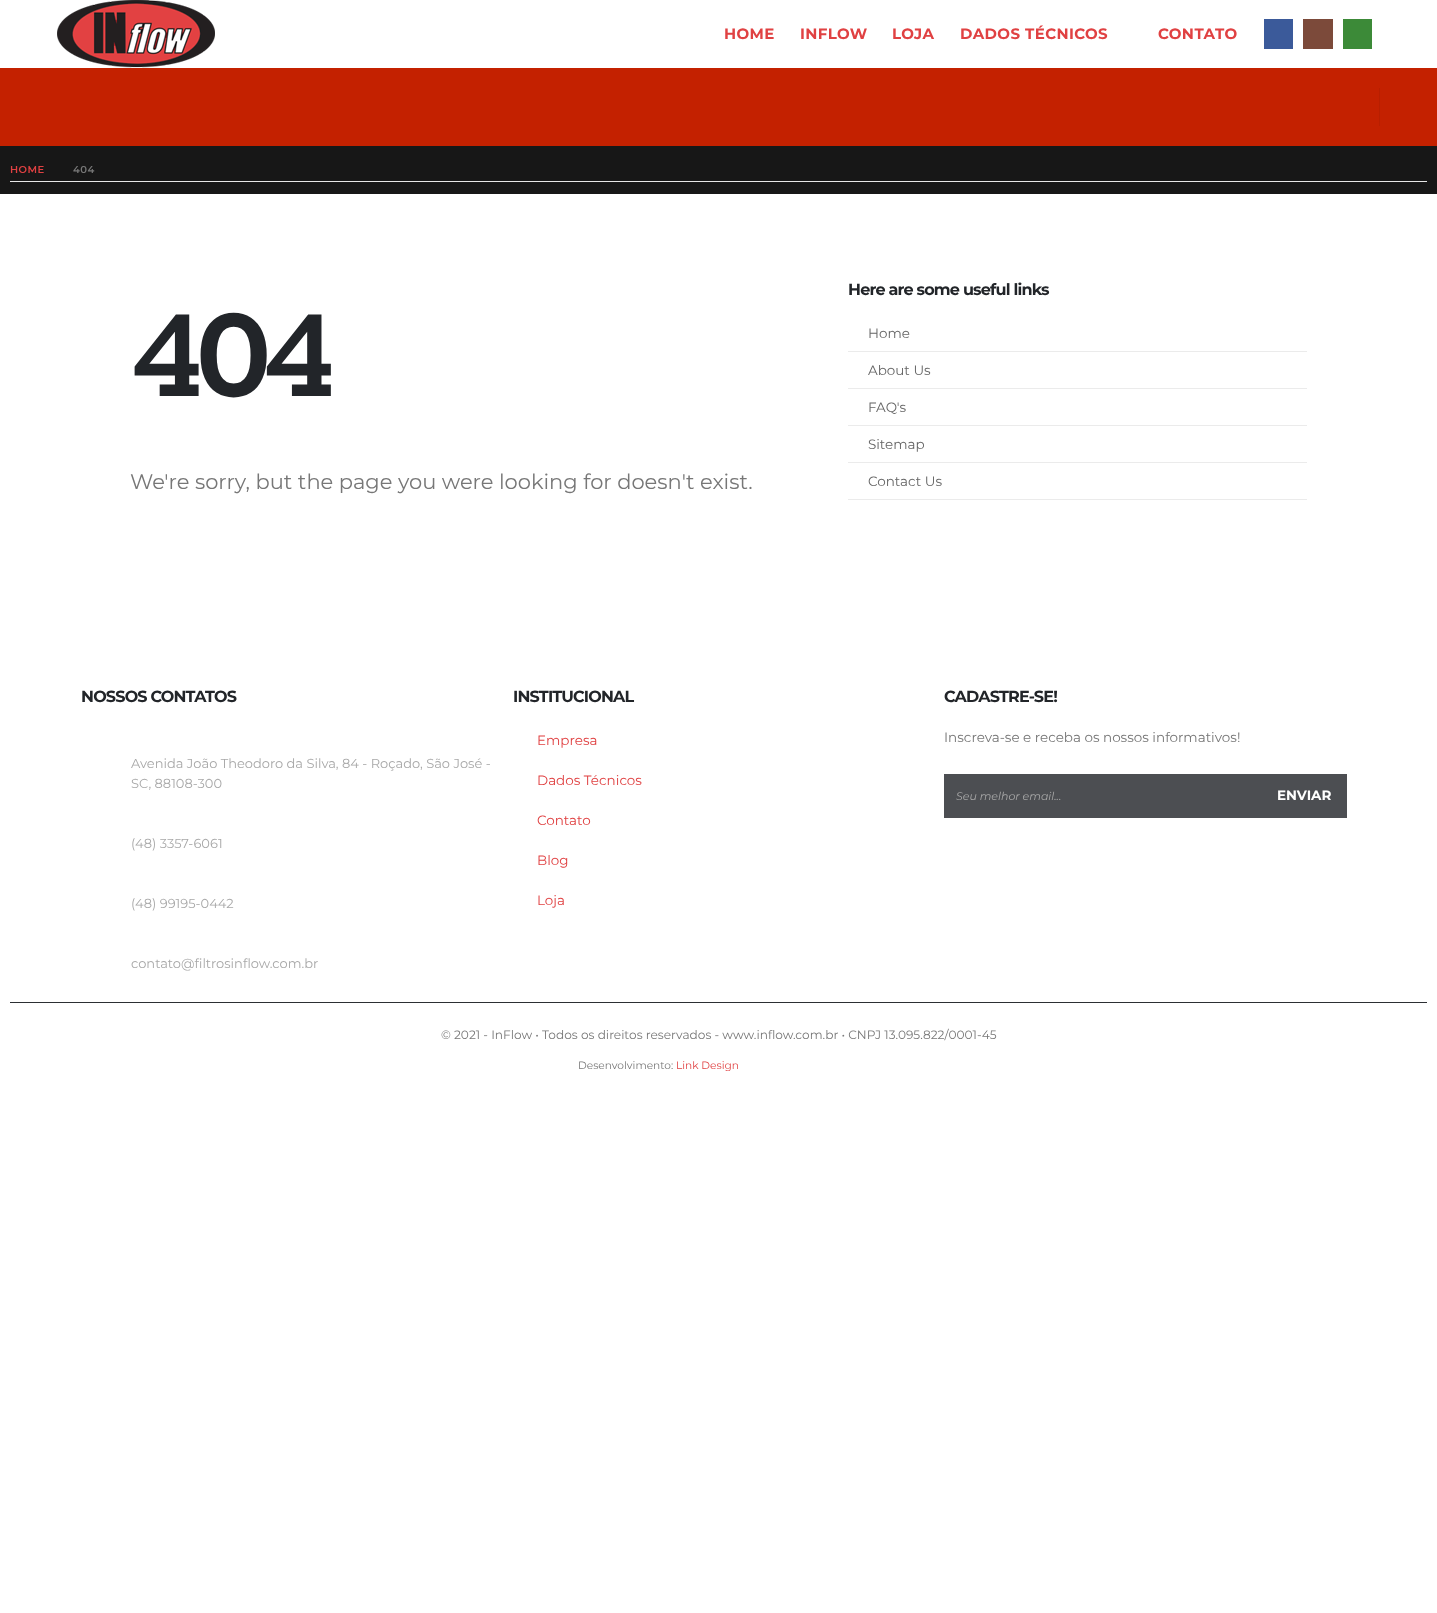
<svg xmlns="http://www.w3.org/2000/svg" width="1437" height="1613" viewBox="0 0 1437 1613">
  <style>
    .t1 { font: bold 15px Montserrat; letter-spacing: 0.4px; fill: #e04142; }
    .t2 { font: 600 10px Montserrat; letter-spacing: 0.5px; fill: #e04142; }
    .t3 { font: 600 10px Montserrat; letter-spacing: 0.5px; fill: #777; }
    .t4 { font: 600 140px Rokkitt; letter-spacing: -10px; fill: #222529; }
    .t5 { font: 21px Montserrat; fill: #777; }
    .t6 { font: bold 16px Montserrat; letter-spacing: -0.8px; fill: #222529; }
    .t7 { font: 13.5px Montserrat; fill: #666; }
    .t8 { font: 13px Montserrat; fill: #a8a8a8; }
    .t9 { font: 13.5px Montserrat; fill: #e04142; }
    .t10 { font: 13.5px Montserrat; fill: #777; }
    .t11 { font: italic 11px Montserrat; fill: #a8a8a8; }
    .t12 { font: bold 13.5px Montserrat; fill: #fff; }
    .t13 { font: 12.15px Montserrat; fill: #777; }
    .t14 { font: 10.6px Montserrat; fill: #777; }
    .t15 { font: 10.6px Montserrat; fill: #e04142; }
  </style>
  <rect width="100%" height="100%" fill="#fff"/>
  <image x="57" y="0" width="158" height="68" href="images/1.png"/>
  <text x="724" y="39" class="t1">HOME</text>
  <text x="800" y="39" class="t1">INFLOW</text>
  <text x="892" y="39" class="t1">LOJA</text>
  <text x="960" y="39" class="t1">DADOS TÉCNICOS</text>
  <text x="1158" y="39" class="t1">CONTATO</text>
  <rect x="1264" y="19" width="29" height="30" fill="#3b5a9a"/>
  <rect x="1303" y="19" width="30" height="30" fill="#7c4a3a"/>
  <rect x="1343" y="19" width="29" height="30" fill="#3c8a38"/>
  <rect x="0" y="68" width="1437" height="78" fill="#c42100"/>
  <rect x="1379" y="88" width="1" height="38" fill="#b81f00"/>
  <rect x="0" y="146" width="1437" height="48" fill="#171717"/>
  <text x="10" y="173" class="t2">HOME</text>
  <text x="73" y="173" class="t3">404</text>
  <rect x="10" y="181" width="1417" height="1" fill="#e7e7e7"/>
  <text x="130" y="396" class="t4">404</text>
  <text x="130" y="489" class="t5">We're sorry, but the page you were looking for doesn't exist.</text>
  <text x="848" y="295" class="t6">Here are some useful links</text>
  <rect x="848" y="351" width="459" height="1" fill="#ebebeb"/>
  <text x="868" y="338" class="t7">Home</text>
  <rect x="848" y="388" width="459" height="1" fill="#ebebeb"/>
  <text x="868" y="375" class="t7">About Us</text>
  <rect x="848" y="425" width="459" height="1" fill="#ebebeb"/>
  <text x="868" y="412" class="t7">FAQ's</text>
  <rect x="848" y="462" width="459" height="1" fill="#ebebeb"/>
  <text x="868" y="449" class="t7">Sitemap</text>
  <rect x="848" y="499" width="459" height="1" fill="#ebebeb"/>
  <text x="868" y="486" class="t7">Contact Us</text>
  <text x="81" y="702" class="t6">NOSSOS CONTATOS</text>
  <text x="131" y="768" class="t8">Avenida João Theodoro da Silva, 84 - Roçado, São José -</text>
  <text x="131" y="788" class="t8">SC, 88108-300</text>
  <text x="131" y="848" class="t8">(48) 3357-6061</text>
  <text x="131" y="908" class="t8">(48) 99195-0442</text>
  <text x="131" y="968" class="t8">contato@filtrosinflow.com.br</text>
  <text x="513" y="702" class="t6">INSTITUCIONAL</text>
  <text x="537" y="745" class="t9">Empresa</text>
  <text x="537" y="785" class="t9">Dados Técnicos</text>
  <text x="537" y="825" class="t9">Contato</text>
  <text x="537" y="865" class="t9">Blog</text>
  <text x="537" y="905" class="t9">Loja</text>
  <text x="944" y="702" class="t6">CADASTRE-SE!</text>
  <text x="944" y="742" class="t10">Inscreva-se e receba os nossos informativos!</text>
  <rect x="944" y="774" width="403" height="44" fill="#4c4e52"/>
  <text x="956" y="800" class="t11">Seu melhor email...</text>
  <text x="1277" y="800" class="t12">ENVIAR</text>
  <rect x="10" y="1002" width="1417" height="1" fill="#2c2f33"/>
  <text x="441" y="1039" class="t13">© 2021 - InFlow • Todos os direitos reservados - www.inflow.com.br • CNPJ 13.095.822/0001-45</text>
  <text x="578" y="1069" class="t14">Desenvolvimento:</text>
  <text x="676" y="1069" class="t15">Link Design</text>
</svg>
